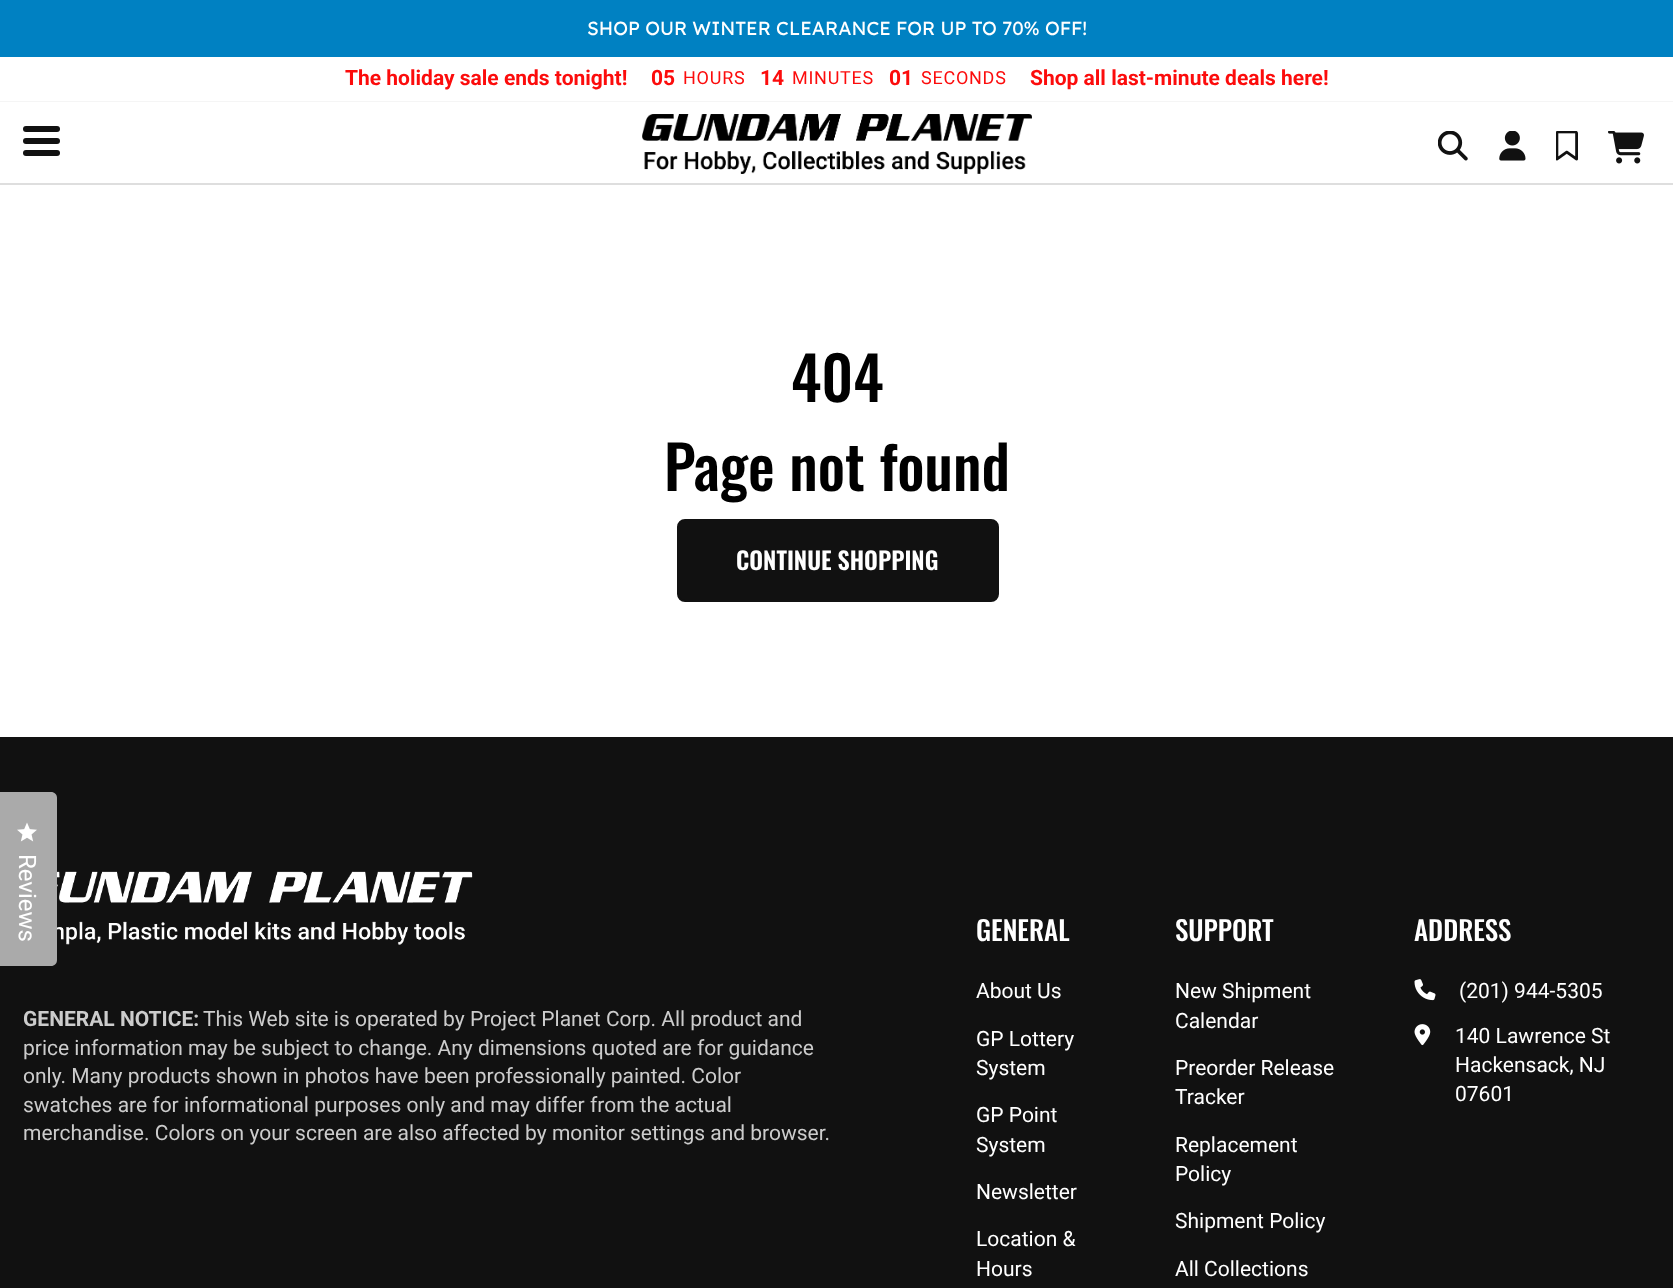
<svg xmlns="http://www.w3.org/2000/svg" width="1673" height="1288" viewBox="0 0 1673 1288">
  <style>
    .t1 { font: 18.9px Lexend; fill: #fff; }
    .t2 { font: bold 21px Roboto; fill: #fc0c0c; }
    .t3 { font: 18px Roboto; letter-spacing: 0.75px; fill: #fc0c0c; }
    .t4 { font: 500 60px Oswald; fill: #000; }
    .t5 { font: 600 24px Oswald; fill: #fff; }
    .t6 { font: 24px Roboto; fill: #fff; }
    .t7 { font: bold 21px Roboto; fill: #ccc; }
    .t8 { font: 21px Roboto; fill: #ccc; }
    .t9 { font: 500 27px Oswald; fill: #fff; }
    .t10 { font: 21px Roboto; fill: #fff; }
  </style>
  <rect width="100%" height="100%" fill="#fff"/>
  <rect x="0" y="0" width="1673" height="57" fill="#0081c2"/>
  <text x="587" y="35" class="t1">SHOP OUR WINTER CLEARANCE FOR UP TO 70% OFF!</text>
  <rect x="0" y="101" width="1673" height="1" fill="#f5f5f5"/>
  <text x="345" y="85" class="t2">The holiday sale ends tonight!</text>
  <text x="651" y="85" class="t2">05</text>
  <text x="683" y="84" class="t3">HOURS</text>
  <text x="760" y="85" class="t2">14</text>
  <text x="792" y="84" class="t3">MINUTES</text>
  <text x="889" y="85" class="t2">01</text>
  <text x="921" y="84" class="t3">SECONDS</text>
  <text x="1030" y="85" class="t2">Shop all last-minute deals here!</text>
  <rect x="0" y="183" width="1673" height="2" fill="#dedede"/>
  <rect x="23" y="126" width="37" height="6" rx="3" fill="#111"/>
  <rect x="23" y="138" width="37" height="6" rx="3" fill="#111"/>
  <rect x="23" y="150" width="37" height="6" rx="3" fill="#111"/>
  <image x="642" y="114" width="390" height="60" href="images/1.png"/>
  <image x="1438" y="131" width="30" height="30" href="images/2.png"/>
  <image x="1499" y="131" width="27" height="30" href="images/3.png"/>
  <image x="1556" y="131" width="22" height="30" href="images/4.png"/>
  <image x="1608" y="131" width="36" height="33" href="images/5.png"/>
  <text x="791" y="402" class="t4">404</text>
  <text x="664" y="491" class="t4">Page not found</text>
  <rect x="678" y="520" width="320" height="81" rx="7" fill="#111" stroke="#111" stroke-width="2"/>
  <text x="736" y="570" class="t5">CONTINUE SHOPPING</text>
  <rect x="0" y="737" width="1673" height="551" fill="#111"/>
  <path d="M-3 792H51C54.5 792 57 794.5 57 798V960C57 963.5 54.5 966 51 966H-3Z" fill="#aaa"/>
  <image x="17" y="822" width="20" height="20" href="images/6.png"/>
  <text x="19" y="854" transform="rotate(90.1 19 854)" class="t6">Reviews</text>
  <image x="57" y="871" width="416" height="74" href="images/7.png"/>
  <text x="23" y="1026" class="t7">GENERAL NOTICE:</text>
  <text x="203" y="1026" class="t8">This Web site is operated by Project Planet Corp. All product and</text>
  <text x="23" y="1055" class="t8">price information may be subject to change. Any dimensions quoted are for guidance</text>
  <text x="23" y="1083" class="t8">only. Many products shown in photos have been professionally painted. Color</text>
  <text x="23" y="1112" class="t8">swatches are for informational purposes only and may differ from the actual</text>
  <text x="23" y="1140" class="t8">merchandise. Colors on your screen are also affected by monitor settings and browser.</text>
  <text x="976" y="941" class="t9">GENERAL</text>
  <text x="976" y="998" class="t10">About Us</text>
  <text x="976" y="1046" class="t10">GP Lottery</text>
  <text x="976" y="1075" class="t10">System</text>
  <text x="976" y="1122" class="t10">GP Point</text>
  <text x="976" y="1152" class="t10">System</text>
  <text x="976" y="1199" class="t10">Newsletter</text>
  <text x="976" y="1246" class="t10">Location &amp;</text>
  <text x="976" y="1276" class="t10">Hours</text>
  <text x="1175" y="941" class="t9">SUPPORT</text>
  <text x="1175" y="998" class="t10">New Shipment</text>
  <text x="1175" y="1028" class="t10">Calendar</text>
  <text x="1175" y="1075" class="t10">Preorder Release</text>
  <text x="1175" y="1104" class="t10">Tracker</text>
  <text x="1175" y="1152" class="t10">Replacement</text>
  <text x="1175" y="1181" class="t10">Policy</text>
  <text x="1175" y="1228" class="t10">Shipment Policy</text>
  <text x="1175" y="1276" class="t10">All Collections</text>
  <text x="1414" y="941" class="t9">ADDRESS</text>
  <image x="1414" y="979" width="22" height="22" href="images/8.png"/>
  <text x="1459" y="998" class="t10">(201) 944-5305</text>
  <image x="1414" y="1024" width="17" height="22" href="images/9.png"/>
  <text x="1455" y="1043" class="t10">140 Lawrence St</text>
  <text x="1455" y="1072" class="t10">Hackensack, NJ</text>
  <text x="1455" y="1101" class="t10">07601</text>
</svg>
